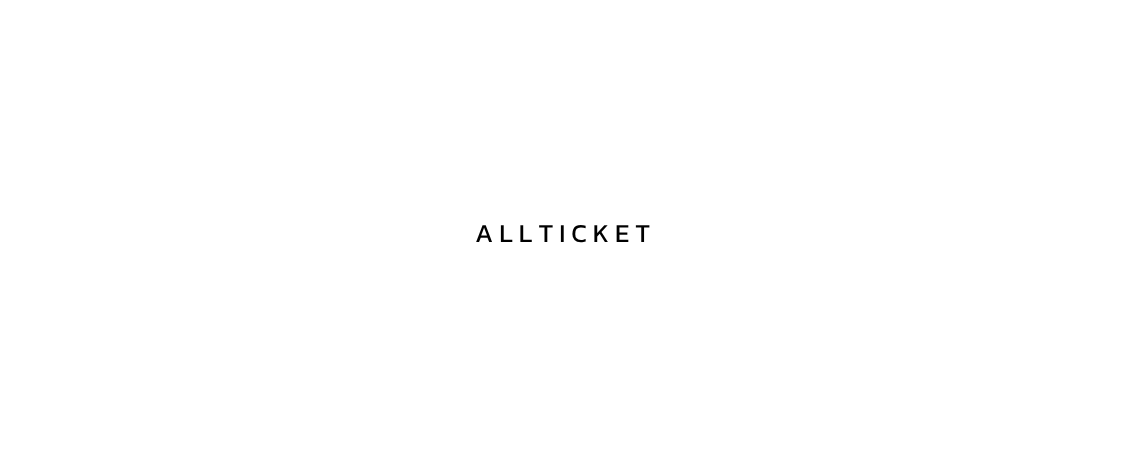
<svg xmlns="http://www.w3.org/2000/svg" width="1125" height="464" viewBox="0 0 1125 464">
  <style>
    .t1 { font: 26px Kanit; fill: #000; }
  </style>
  <rect width="100%" height="100%" fill="#fff"/>
  <text x="475" y="242" class="t1">A L L T I C K E T</text>
</svg>
